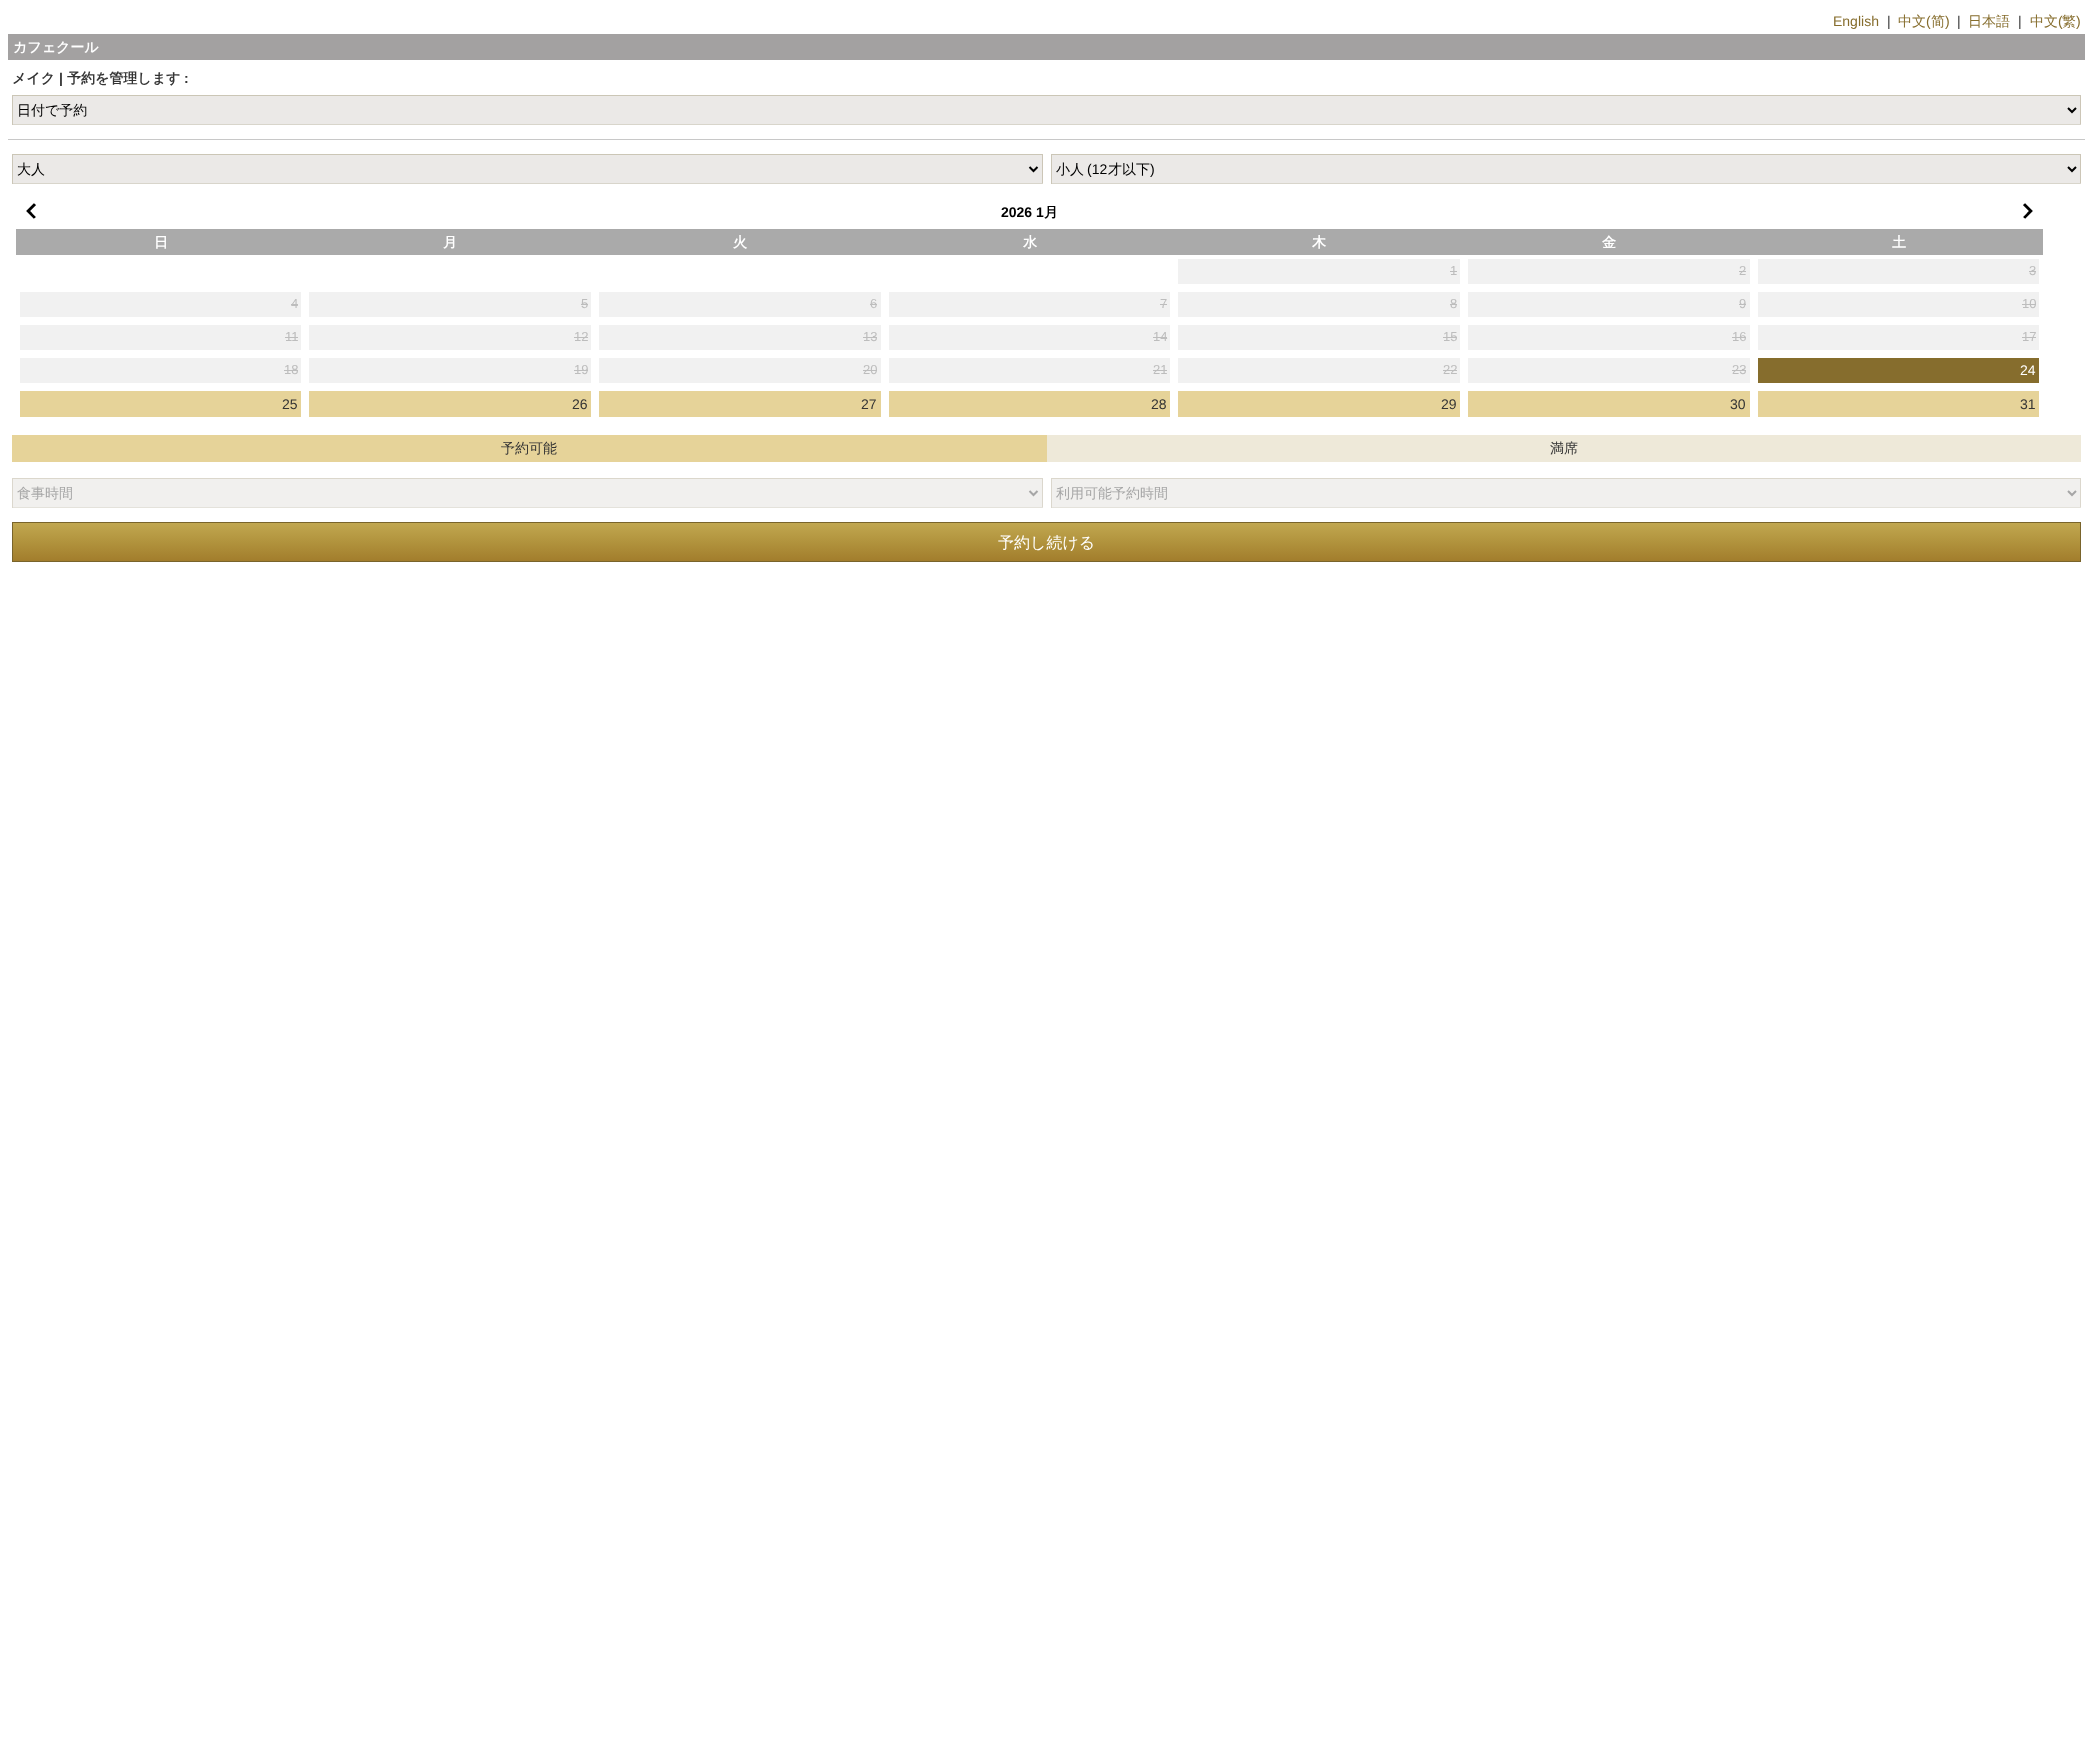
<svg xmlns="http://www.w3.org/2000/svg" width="2093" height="1758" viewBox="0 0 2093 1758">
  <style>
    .t1 { font: 14px Liberation Sans; fill: #866d2d; }
    .t2 { font: 14px Liberation Sans; fill: #343434; }
    .t3 { font: 500 14px WenQuanYi Zen Hei; fill: #866d2d; }
    .t4 { font: bold 14px WenQuanYi Zen Hei; fill: #fff; }
    .t5 { font: bold 14px WenQuanYi Zen Hei; fill: #343434; }
    .t6 { font: bold 14px Liberation Sans; fill: #343434; }
    .t7 { font: 500 14px WenQuanYi Zen Hei; fill: #000; }
    .t8 { font: 14px Liberation Sans; fill: #000; }
    .t9 { font: bold 14px Liberation Sans; fill: #000; }
    .t10 { font: bold 14px WenQuanYi Zen Hei; fill: #000; }
    .t11 { font: 13px Liberation Sans; fill: #bdbdbd; }
    .t12 { font: 14px Liberation Sans; fill: #fff; }
    .t13 { font: 500 14px WenQuanYi Zen Hei; fill: #343434; }
    .t14 { font: 500 14px WenQuanYi Zen Hei; fill: #a6a6a6; }
    .t15 { font: 500 16px WenQuanYi Zen Hei; fill: #fff; }
  </style>
  <defs>
    <linearGradient id="g1" gradientUnits="userSpaceOnUse" x1="1047" y1="523" x2="1047" y2="561"><stop offset="0" stop-color="#c1a750"/><stop offset="0.5" stop-color="#b1933d"/><stop offset="1" stop-color="#a27d2c"/></linearGradient>
  </defs>
  <rect width="100%" height="100%" fill="#fff"/>
  <text x="1833" y="26" class="t1">English</text>
  <text x="1887" y="26" class="t2">|</text>
  <text x="1898" y="26" class="t3">中文</text>
  <text x="1926" y="26" class="t1">(</text>
  <text x="1931" y="26" class="t3">简</text>
  <text x="1945" y="26" class="t1">)</text>
  <text x="1957" y="26" class="t2">|</text>
  <text x="1968" y="26" class="t3">日本語</text>
  <text x="2018" y="26" class="t2">|</text>
  <text x="2030" y="26" class="t3">中文</text>
  <text x="2058" y="26" class="t1">(</text>
  <text x="2062" y="26" class="t3">繁</text>
  <text x="2076" y="26" class="t1">)</text>
  <rect x="8" y="34" width="2077" height="26" fill="#a3a1a1"/>
  <text x="13" y="52" class="t4">カフェクール</text>
  <text x="12" y="83" class="t5">メイク</text>
  <text x="59" y="83" class="t6">|</text>
  <text x="67" y="83" class="t5">予約を管理します</text>
  <text x="184" y="83" class="t6">:</text>
  <rect x="13" y="96" width="2067" height="28" fill="#ebe9e7"/>
  <rect x="12" y="95" width="2069" height="1" fill="#cbc6b6"/>
  <rect x="2080" y="95" width="1" height="30" fill="#ccc6b7"/>
  <rect x="12" y="124" width="2069" height="1" fill="#d8d5cb"/>
  <rect x="12" y="95" width="1" height="30" fill="#cbc6b7"/>
  <path d="M2068 108L2072 112L2076 108" fill="none" stroke="#000" stroke-width="2"/>
  <text x="17" y="115" class="t7">日付で予約</text>
  <rect x="8" y="139" width="2077" height="1" fill="#c8c8c8"/>
  <rect x="13" y="155" width="1029" height="28" fill="#ebe9e7"/>
  <rect x="12" y="154" width="1031" height="1" fill="#cbc6b6"/>
  <rect x="1042" y="154" width="1" height="30" fill="#ccc6b7"/>
  <rect x="12" y="183" width="1031" height="1" fill="#d8d5cb"/>
  <rect x="12" y="154" width="1" height="30" fill="#cbc6b7"/>
  <path d="M1029.5 167L1033.5 171L1037.5 167" fill="none" stroke="#000" stroke-width="2"/>
  <text x="17" y="174" class="t7">大人</text>
  <rect x="1052" y="155" width="1028" height="28" fill="#ebe9e7"/>
  <rect x="1051" y="154" width="1030" height="1" fill="#cbc6b6"/>
  <rect x="2080" y="154" width="1" height="30" fill="#ccc6b7"/>
  <rect x="1051" y="183" width="1030" height="1" fill="#d8d5cb"/>
  <rect x="1051" y="154" width="1" height="30" fill="#cbc6b7"/>
  <path d="M2068 167L2072 171L2076 167" fill="none" stroke="#000" stroke-width="2"/>
  <text x="1056" y="174" class="t7">小人</text>
  <text x="1087" y="174" class="t8">(12</text>
  <text x="1108" y="174" class="t7">才以下</text>
  <text x="1150" y="174" class="t8">)</text>
  <image x="26" y="203" width="10" height="16" href="images/1.png"/>
  <text x="1001" y="217" class="t9">2026 1</text>
  <text x="1044" y="217" class="t10">月</text>
  <image x="2023" y="203" width="10" height="16" href="images/2.png"/>
  <rect x="16" y="229" width="2027" height="26" fill="#aaa"/>
  <text x="154" y="247" class="t4">日</text>
  <text x="443" y="247" class="t4">月</text>
  <text x="733" y="247" class="t4">火</text>
  <text x="1023" y="247" class="t4">水</text>
  <text x="1312" y="247" class="t4">木</text>
  <text x="1602" y="247" class="t4">金</text>
  <text x="1892" y="247" class="t4">土</text>
  <rect x="1178" y="259" width="282" height="25" fill="#f1f1f1"/>
  <text x="1450" y="275" class="t11">1</text>
  <rect x="1450" y="271" width="7" height="1" fill="#bdbdbd"/>
  <rect x="1468" y="259" width="282" height="25" fill="#f1f1f1"/>
  <text x="1739" y="275" class="t11">2</text>
  <rect x="1739" y="271" width="7" height="1" fill="#bdbdbd"/>
  <rect x="1758" y="259" width="281" height="25" fill="#f1f1f1"/>
  <text x="2029" y="275" class="t11">3</text>
  <rect x="2029" y="271" width="7" height="1" fill="#bdbdbd"/>
  <rect x="20" y="292" width="281" height="25" fill="#f1f1f1"/>
  <text x="291" y="308" class="t11">4</text>
  <rect x="291" y="304" width="7" height="1" fill="#bdbdbd"/>
  <rect x="309" y="292" width="282" height="25" fill="#f1f1f1"/>
  <text x="581" y="308" class="t11">5</text>
  <rect x="581" y="304" width="7" height="1" fill="#bdbdbd"/>
  <rect x="599" y="292" width="282" height="25" fill="#f1f1f1"/>
  <text x="870" y="308" class="t11">6</text>
  <rect x="870" y="304" width="7" height="1" fill="#bdbdbd"/>
  <rect x="889" y="292" width="281" height="25" fill="#f1f1f1"/>
  <text x="1160" y="308" class="t11">7</text>
  <rect x="1160" y="304" width="7" height="1" fill="#bdbdbd"/>
  <rect x="1178" y="292" width="282" height="25" fill="#f1f1f1"/>
  <text x="1450" y="308" class="t11">8</text>
  <rect x="1450" y="304" width="7" height="1" fill="#bdbdbd"/>
  <rect x="1468" y="292" width="282" height="25" fill="#f1f1f1"/>
  <text x="1739" y="308" class="t11">9</text>
  <rect x="1739" y="304" width="7" height="1" fill="#bdbdbd"/>
  <rect x="1758" y="292" width="281" height="25" fill="#f1f1f1"/>
  <text x="2022" y="308" class="t11">10</text>
  <rect x="2022" y="304" width="14" height="1" fill="#bdbdbd"/>
  <rect x="20" y="325" width="281" height="25" fill="#f1f1f1"/>
  <text x="285" y="341" class="t11">11</text>
  <rect x="285" y="337" width="13" height="1" fill="#bdbdbd"/>
  <rect x="309" y="325" width="282" height="25" fill="#f1f1f1"/>
  <text x="574" y="341" class="t11">12</text>
  <rect x="574" y="337" width="14" height="1" fill="#bdbdbd"/>
  <rect x="599" y="325" width="282" height="25" fill="#f1f1f1"/>
  <text x="863" y="341" class="t11">13</text>
  <rect x="863" y="337" width="14" height="1" fill="#bdbdbd"/>
  <rect x="889" y="325" width="281" height="25" fill="#f1f1f1"/>
  <text x="1153" y="341" class="t11">14</text>
  <rect x="1153" y="337" width="14" height="1" fill="#bdbdbd"/>
  <rect x="1178" y="325" width="282" height="25" fill="#f1f1f1"/>
  <text x="1443" y="341" class="t11">15</text>
  <rect x="1443" y="337" width="14" height="1" fill="#bdbdbd"/>
  <rect x="1468" y="325" width="282" height="25" fill="#f1f1f1"/>
  <text x="1732" y="341" class="t11">16</text>
  <rect x="1732" y="337" width="14" height="1" fill="#bdbdbd"/>
  <rect x="1758" y="325" width="281" height="25" fill="#f1f1f1"/>
  <text x="2022" y="341" class="t11">17</text>
  <rect x="2022" y="337" width="14" height="1" fill="#bdbdbd"/>
  <rect x="20" y="358" width="281" height="25" fill="#f1f1f1"/>
  <text x="284" y="374" class="t11">18</text>
  <rect x="284" y="370" width="14" height="1" fill="#bdbdbd"/>
  <rect x="309" y="358" width="282" height="25" fill="#f1f1f1"/>
  <text x="574" y="374" class="t11">19</text>
  <rect x="574" y="370" width="14" height="1" fill="#bdbdbd"/>
  <rect x="599" y="358" width="282" height="25" fill="#f1f1f1"/>
  <text x="863" y="374" class="t11">20</text>
  <rect x="863" y="370" width="14" height="1" fill="#bdbdbd"/>
  <rect x="889" y="358" width="281" height="25" fill="#f1f1f1"/>
  <text x="1153" y="374" class="t11">21</text>
  <rect x="1153" y="370" width="14" height="1" fill="#bdbdbd"/>
  <rect x="1178" y="358" width="282" height="25" fill="#f1f1f1"/>
  <text x="1443" y="374" class="t11">22</text>
  <rect x="1443" y="370" width="14" height="1" fill="#bdbdbd"/>
  <rect x="1468" y="358" width="282" height="25" fill="#f1f1f1"/>
  <text x="1732" y="374" class="t11">23</text>
  <rect x="1732" y="370" width="14" height="1" fill="#bdbdbd"/>
  <rect x="1758" y="358" width="281" height="25" fill="#866d2d"/>
  <text x="2020" y="375" class="t12">24</text>
  <rect x="20" y="391" width="281" height="26" fill="#e6d399"/>
  <text x="282" y="409" class="t2">25</text>
  <rect x="309" y="391" width="282" height="26" fill="#e6d399"/>
  <text x="572" y="409" class="t2">26</text>
  <rect x="599" y="391" width="282" height="26" fill="#e6d399"/>
  <text x="861" y="409" class="t2">27</text>
  <rect x="889" y="391" width="281" height="26" fill="#e6d399"/>
  <text x="1151" y="409" class="t2">28</text>
  <rect x="1178" y="391" width="282" height="26" fill="#e6d399"/>
  <text x="1441" y="409" class="t2">29</text>
  <rect x="1468" y="391" width="282" height="26" fill="#e6d399"/>
  <text x="1730" y="409" class="t2">30</text>
  <rect x="1758" y="391" width="281" height="26" fill="#e6d399"/>
  <text x="2020" y="409" class="t2">31</text>
  <rect x="12" y="435" width="1035" height="27" fill="#e6d399"/>
  <text x="501" y="453" class="t13">予約可能</text>
  <rect x="1047" y="435" width="1034" height="27" fill="#eee9d9"/>
  <text x="1550" y="453" class="t13">満席</text>
  <rect x="13" y="479" width="1029" height="28" fill="#f1f0ee"/>
  <rect x="12" y="478" width="1031" height="1" fill="#dbd7cc"/>
  <rect x="1042" y="478" width="1" height="30" fill="#dbd7cd"/>
  <rect x="12" y="507" width="1031" height="1" fill="#e4e2db"/>
  <rect x="12" y="478" width="1" height="30" fill="#dbd7cd"/>
  <path d="M1029.5 491L1033.5 495L1037.5 491" fill="none" stroke="#a6a6a6" stroke-width="2"/>
  <text x="17" y="498" class="t14">食事時間</text>
  <rect x="1052" y="479" width="1028" height="28" fill="#f1f0ee"/>
  <rect x="1051" y="478" width="1030" height="1" fill="#dbd7cc"/>
  <rect x="2080" y="478" width="1" height="30" fill="#dbd7cd"/>
  <rect x="1051" y="507" width="1030" height="1" fill="#e4e2db"/>
  <rect x="1051" y="478" width="1" height="30" fill="#dbd7cd"/>
  <path d="M2068 491L2072 495L2076 491" fill="none" stroke="#a6a6a6" stroke-width="2"/>
  <text x="1056" y="498" class="t14">利用可能予約時間</text>
  <rect x="13" y="523" width="2067" height="38" fill="url(#g1)"/>
  <rect x="12.5" y="522.5" width="2068" height="39" fill="none" stroke="#79642b"/>
  <text x="998" y="548" class="t15">予約し続ける</text>
</svg>
